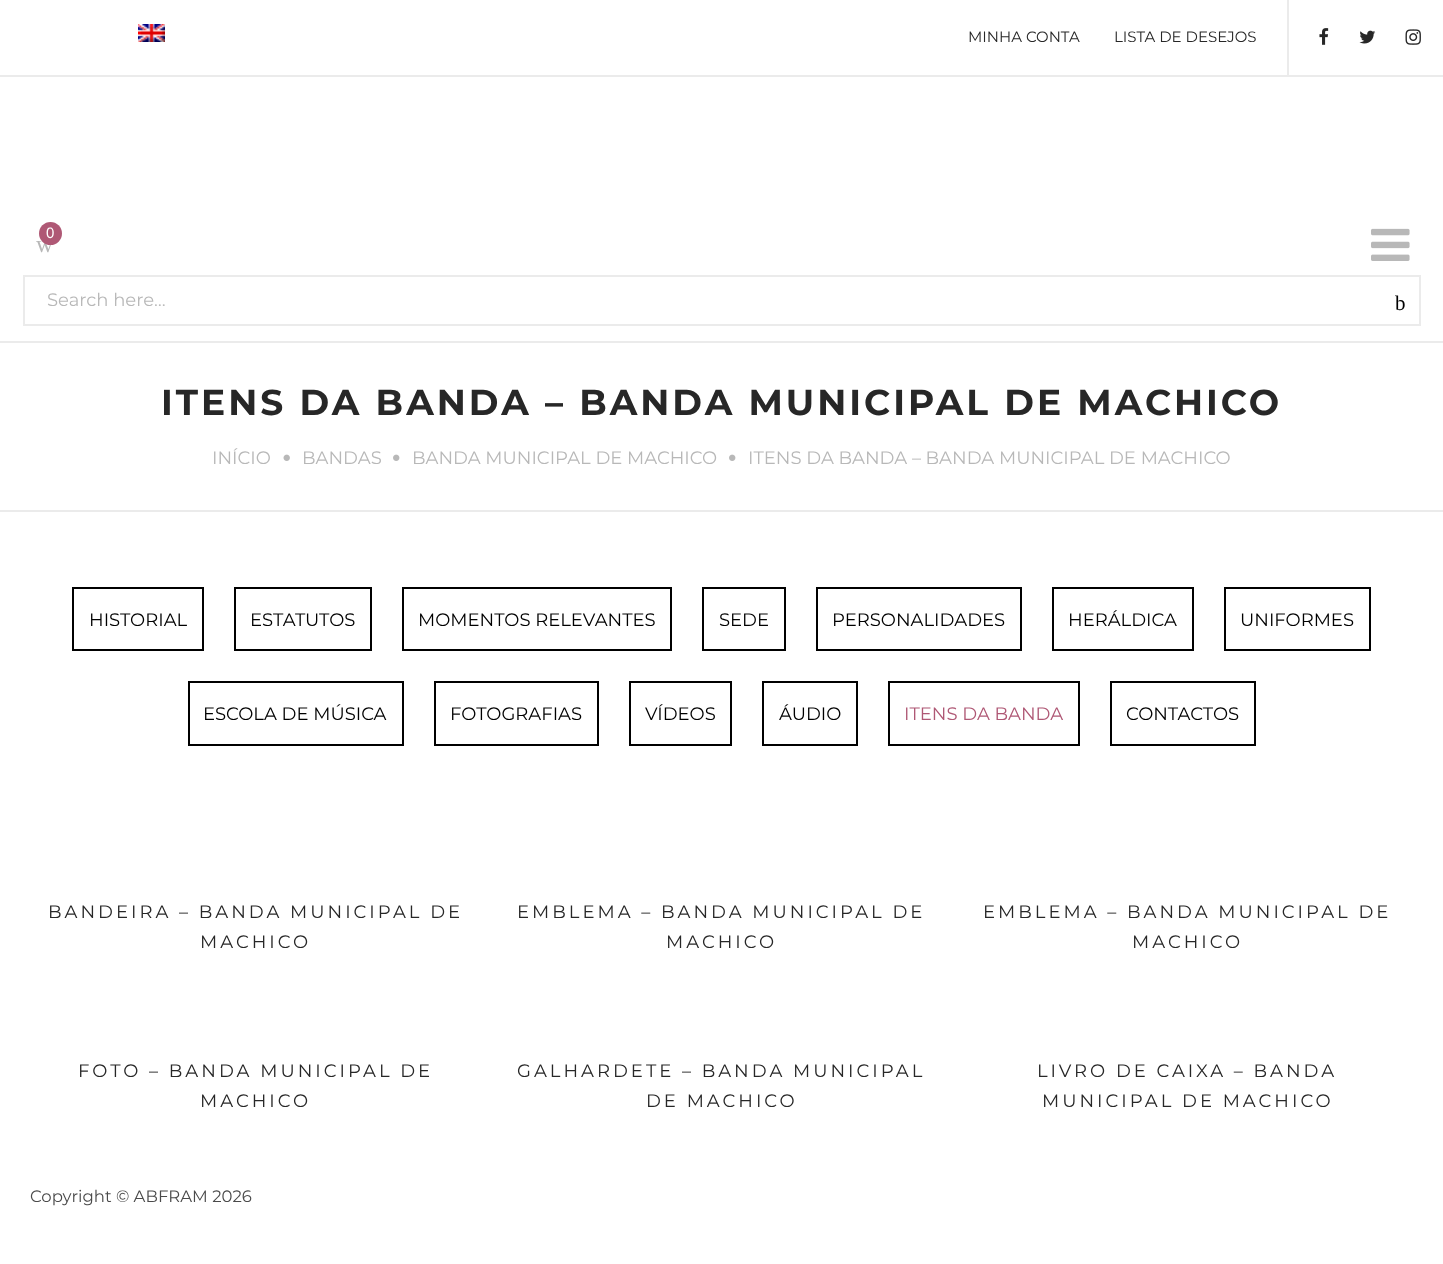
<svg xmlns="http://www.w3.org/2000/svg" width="1443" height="1264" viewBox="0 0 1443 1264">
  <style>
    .t1 { font: 100 15px Montserrat; fill: #272727; }
    .t2 { font: 24px Liberation Serif; fill: #b8b8b8; }
    .t3 { font: 15px Liberation Sans; fill: #fff; }
    .t4 { font: 100 18px Montserrat; fill: #b8b8b8; }
    .t5 { font: 21px Liberation Serif; fill: #000; }
    .t6 { font: bold 36px Montserrat; letter-spacing: 3px; fill: #272727; }
    .t7 { font: 100 18px Montserrat; fill: #000; }
    .t8 { font: 100 18px Montserrat; fill: #af5875; }
    .t9 { font: 100 18px Montserrat; letter-spacing: 3px; fill: #272727; }
    .t10 { font: 100 16.5px Montserrat; fill: #4a4a4a; }
  </style>
  <rect width="100%" height="100%" fill="#fff"/>
  <rect x="0" y="75" width="1443" height="2" fill="#ebebeb"/>
  <image x="138" y="24" width="27" height="18" href="images/1.png"/>
  <text x="968" y="42" class="t1">MINHA CONTA</text>
  <text x="1114" y="42" class="t1">LISTA DE DESEJOS</text>
  <rect x="1287" y="0" width="2" height="75" fill="#ebebeb"/>
  <image x="1319" y="28" width="10" height="17" href="images/2.png"/>
  <image x="1359" y="30" width="17" height="14" href="images/3.png"/>
  <image x="1405" y="29" width="16" height="16" href="images/4.png"/>
  <text x="36" y="252" class="t2">w</text>
  <circle cx="50.5" cy="233.5" r="11.5" fill="#af5875"/>
  <text x="46" y="238" class="t3">0</text>
  <image x="1371" y="228" width="39" height="33" href="images/5.png"/>
  <rect x="24" y="276" width="1396" height="49" fill="none" stroke="#ebebeb" stroke-width="2"/>
  <text x="47" y="306" class="t4">Search here…</text>
  <text x="1395" y="310" class="t5">b</text>
  <rect x="0" y="341" width="1443" height="2" fill="#ebebeb"/>
  <rect x="0" y="510" width="1443" height="2" fill="#ebebeb"/>
  <text x="161" y="415" class="t6">ITENS DA BANDA – BANDA MUNICIPAL DE MACHICO</text>
  <text x="212" y="464" class="t4">INÍCIO</text>
  <image x="283" y="454" width="7" height="7" href="images/6.png"/>
  <text x="302" y="464" class="t4">BANDAS</text>
  <image x="393" y="454" width="7" height="7" href="images/7.png"/>
  <text x="412" y="464" class="t4">BANDA MUNICIPAL DE MACHICO</text>
  <image x="729" y="454" width="7" height="7" href="images/7.png"/>
  <text x="748" y="464" class="t4">ITENS DA BANDA – BANDA MUNICIPAL DE MACHICO</text>
  <rect x="73" y="588" width="130" height="62" fill="none" stroke="#000" stroke-width="2"/>
  <text x="89" y="626" class="t7">HISTORIAL</text>
  <rect x="235" y="588" width="136" height="62" fill="none" stroke="#000" stroke-width="2"/>
  <text x="250" y="626" class="t7">ESTATUTOS</text>
  <rect x="403" y="588" width="268" height="62" fill="none" stroke="#000" stroke-width="2"/>
  <text x="418" y="626" class="t7">MOMENTOS RELEVANTES</text>
  <rect x="703" y="588" width="82" height="62" fill="none" stroke="#000" stroke-width="2"/>
  <text x="719" y="626" class="t7">SEDE</text>
  <rect x="817" y="588" width="204" height="62" fill="none" stroke="#000" stroke-width="2"/>
  <text x="832" y="626" class="t7">PERSONALIDADES</text>
  <rect x="1053" y="588" width="140" height="62" fill="none" stroke="#000" stroke-width="2"/>
  <text x="1068" y="626" class="t7">HERÁLDICA</text>
  <rect x="1225" y="588" width="145" height="62" fill="none" stroke="#000" stroke-width="2"/>
  <text x="1240" y="626" class="t7">UNIFORMES</text>
  <rect x="189" y="682" width="214" height="63" fill="none" stroke="#000" stroke-width="2"/>
  <text x="203" y="720" class="t7">ESCOLA DE MÚSICA</text>
  <rect x="435" y="682" width="163" height="63" fill="none" stroke="#000" stroke-width="2"/>
  <text x="450" y="720" class="t7">FOTOGRAFIAS</text>
  <rect x="630" y="682" width="101" height="63" fill="none" stroke="#000" stroke-width="2"/>
  <text x="645" y="720" class="t7">VÍDEOS</text>
  <rect x="763" y="682" width="94" height="63" fill="none" stroke="#000" stroke-width="2"/>
  <text x="779" y="720" class="t7">ÁUDIO</text>
  <rect x="889" y="682" width="190" height="63" fill="none" stroke="#000" stroke-width="2"/>
  <text x="904" y="720" class="t8">ITENS DA BANDA</text>
  <rect x="1111" y="682" width="144" height="63" fill="none" stroke="#000" stroke-width="2"/>
  <text x="1126" y="720" class="t7">CONTACTOS</text>
  <text x="48" y="918" class="t9">BANDEIRA – BANDA MUNICIPAL DE</text>
  <text x="200" y="948" class="t9">MACHICO</text>
  <text x="517" y="918" class="t9">EMBLEMA – BANDA MUNICIPAL DE</text>
  <text x="666" y="948" class="t9">MACHICO</text>
  <text x="983" y="918" class="t9">EMBLEMA – BANDA MUNICIPAL DE</text>
  <text x="1132" y="948" class="t9">MACHICO</text>
  <text x="78" y="1077" class="t9">FOTO – BANDA MUNICIPAL DE</text>
  <text x="200" y="1107" class="t9">MACHICO</text>
  <text x="517" y="1077" class="t9">GALHARDETE – BANDA MUNICIPAL</text>
  <text x="646" y="1107" class="t9">DE MACHICO</text>
  <text x="1037" y="1077" class="t9">LIVRO DE CAIXA – BANDA</text>
  <text x="1042" y="1107" class="t9">MUNICIPAL DE MACHICO</text>
  <text x="30" y="1202" class="t10">Copyright © ABFRAM 2026</text>
</svg>
